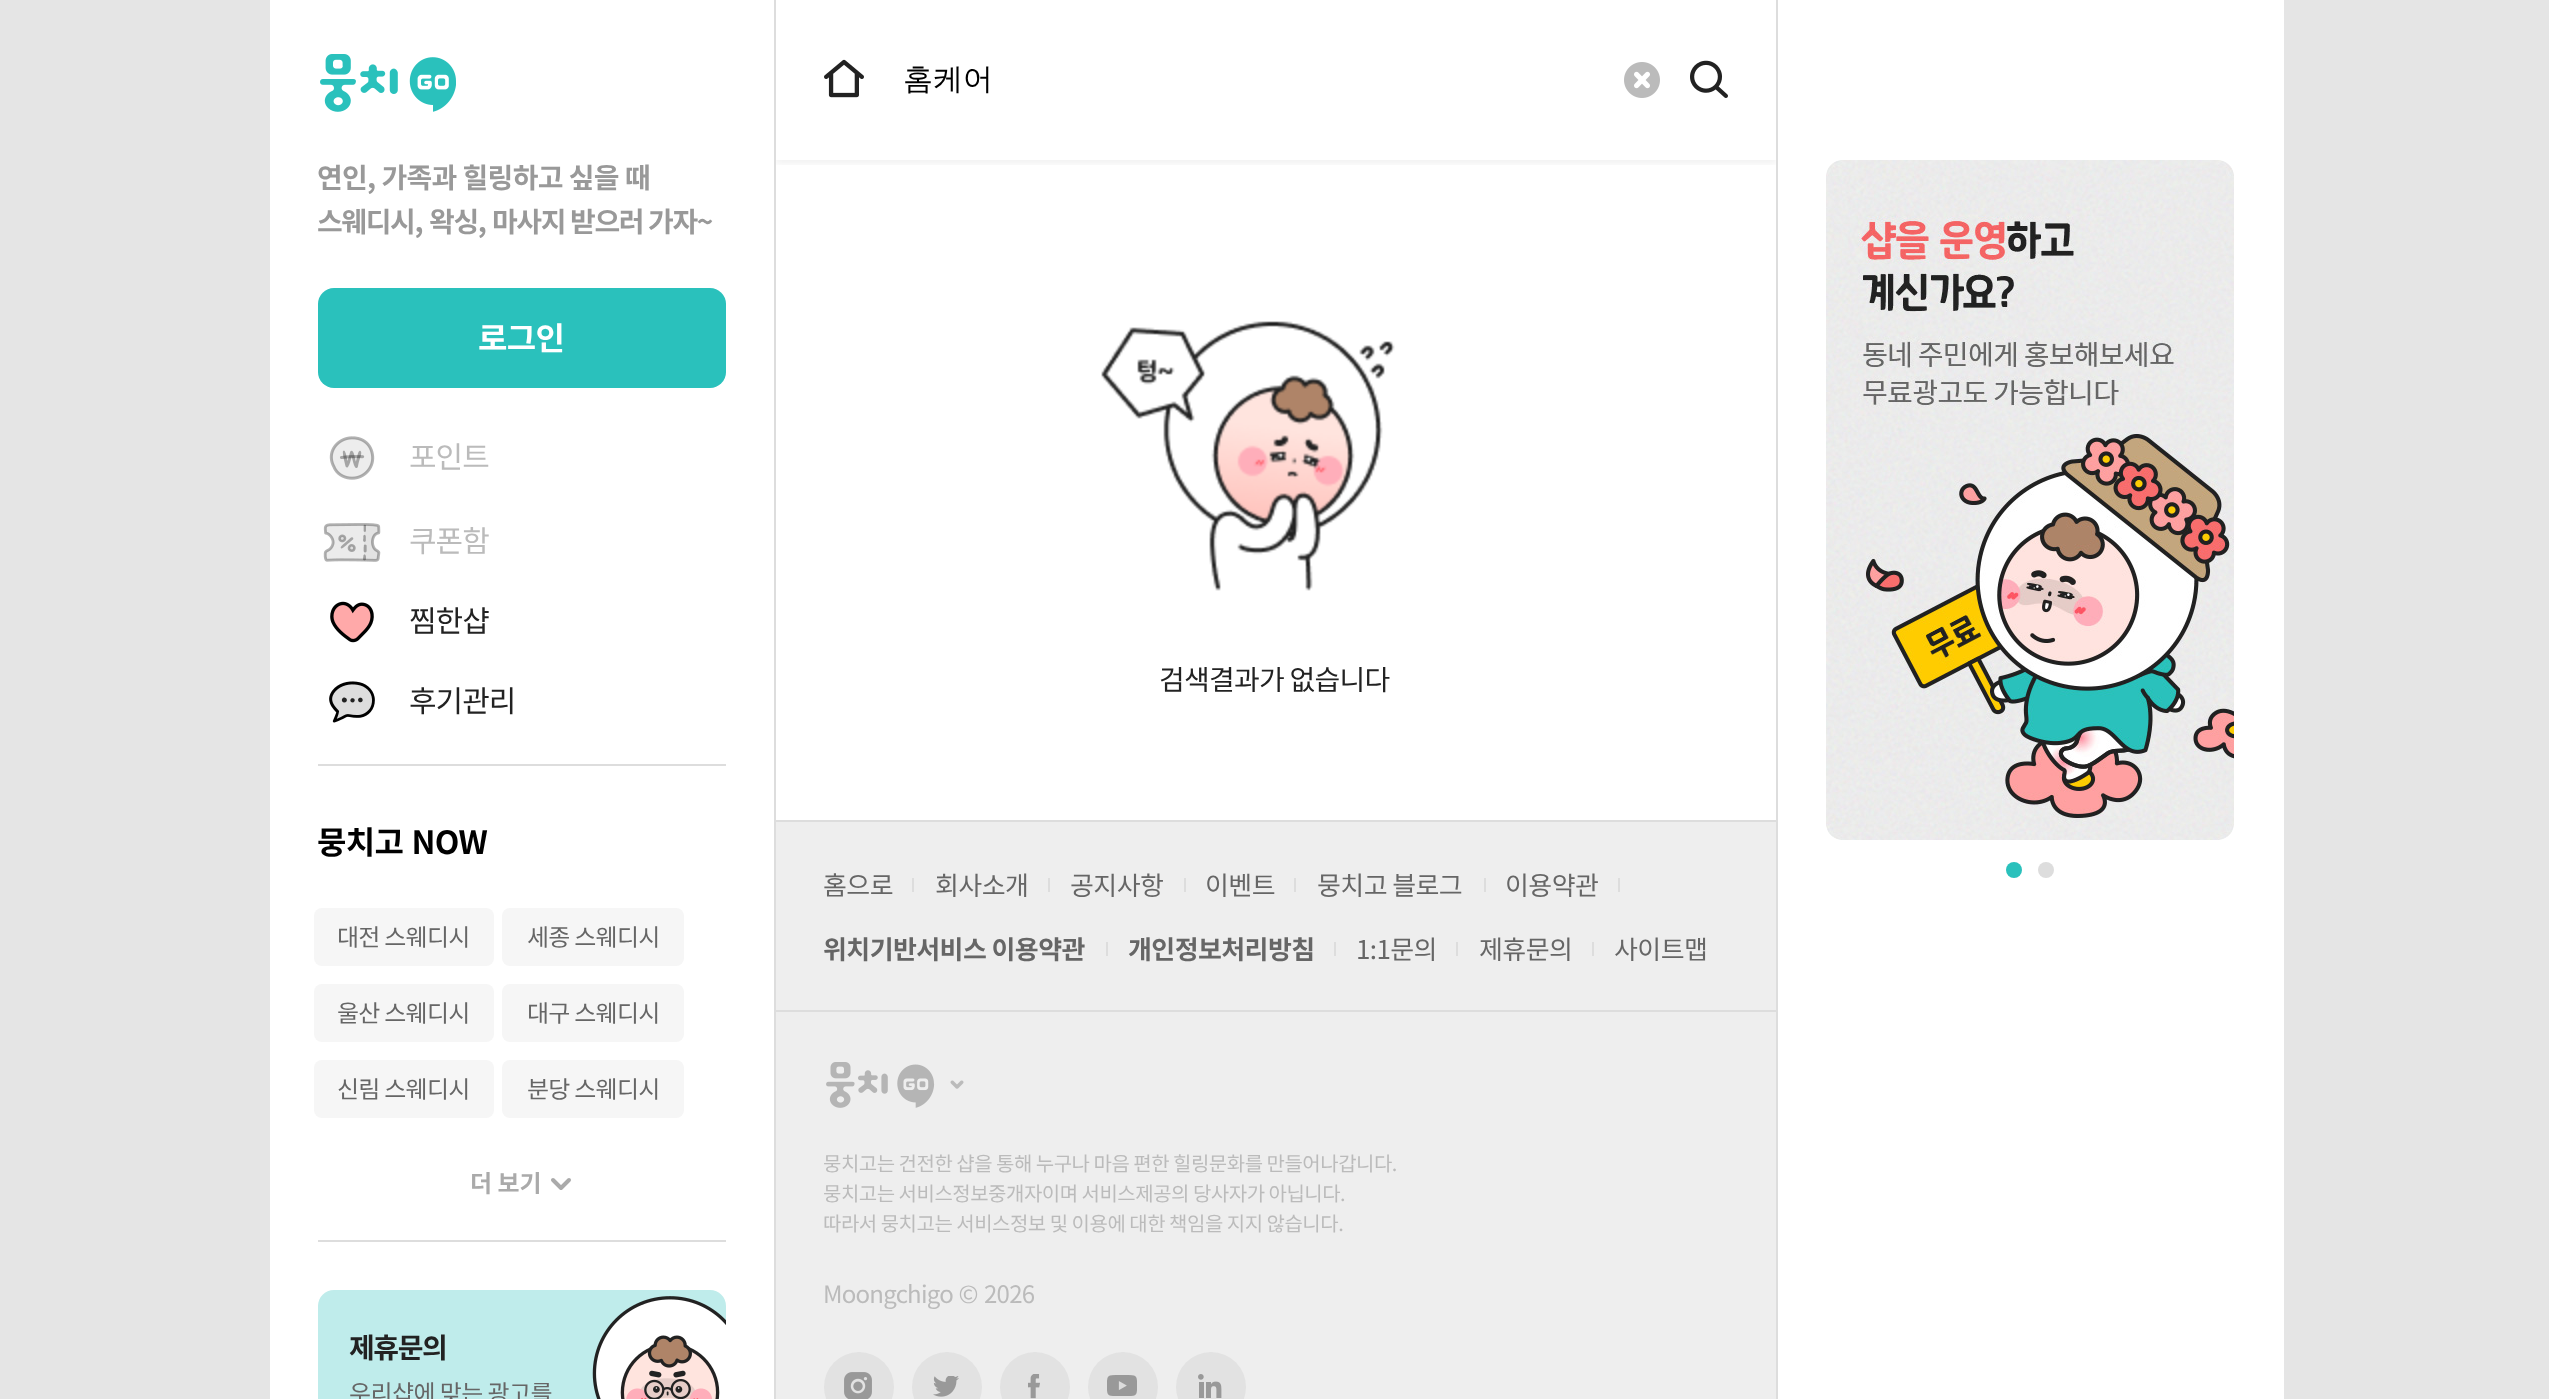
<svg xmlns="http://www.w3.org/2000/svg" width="2549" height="1399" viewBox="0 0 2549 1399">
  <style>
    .t1 { font: bold 28px Noto Sans KR; letter-spacing: -0.75px; fill: #999; }
    .t2 { font: bold 28px Noto Sans KR; letter-spacing: -1.4px; fill: #999; }
    .t3 { font: bold 32px Noto Sans KR; letter-spacing: -0.75px; fill: #fff; }
    .t4 { font: 30px Noto Sans KR; letter-spacing: -1px; fill: #bbb; }
    .t5 { font: 30px Noto Sans KR; letter-spacing: -1px; fill: #222; }
    .t6 { font: bold 32px Noto Sans KR; letter-spacing: -0.75px; fill: #000; }
    .t7 { font: 24px Noto Sans KR; letter-spacing: -0.75px; fill: #666; }
    .t8 { font: bold 24px Noto Sans KR; fill: #aaa; }
    .t9 { font: bold 28px Noto Sans KR; letter-spacing: -1.4px; fill: #222; }
    .t10 { font: 24px Noto Sans KR; letter-spacing: -0.6px; fill: #666; }
    .t11 { font: 500 30px WenQuanYi Zen Hei; fill: #000; }
    .t12 { font: 28px Noto Sans KR; letter-spacing: -0.75px; fill: #222; }
    .t13 { font: 26px Noto Sans KR; letter-spacing: -0.6px; fill: #666; }
    .t14 { font: bold 26px Noto Sans KR; letter-spacing: -0.6px; fill: #666; }
    .t15 { font: 20px Noto Sans KR; letter-spacing: -0.5px; fill: #bbb; }
    .t16 { font: 24px Noto Sans KR; letter-spacing: -0.75px; fill: #bbb; }
  </style>
  <defs>
    <clipPath id="clip1"><rect x="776" y="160" width="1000" height="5"/></clipPath>
  </defs>
  <rect width="100%" height="100%" fill="#e5e5e5"/>
  <rect x="776" y="0" width="1000" height="820" fill="#fff"/>
  <g clip-path="url(#clip1)">
    <rect x="776" y="4" width="1000" height="160" fill="#0000000d" filter="blur(3px)"/>
  </g>
  <rect x="270" y="0" width="504" height="1399" fill="#fff"/>
  <rect x="774" y="0" width="2" height="1399" fill="#ddd"/>
  <image x="320" y="54" width="136" height="58" href="images/1.png"/>
  <text x="317" y="188" word-spacing="0.5" class="t1">연인, 가족과 힐링하고 싶을 때</text>
  <text x="317" y="232" word-spacing="2" class="t2">스웨디시, 왁싱,</text>
  <text x="492" y="232" class="t2">마사지 받으러 가자~</text>
  <rect x="318" y="288" width="408" height="100" rx="16" fill="#2ac1bc"/>
  <text x="478" y="350" class="t3">로그인</text>
  <rect x="318" y="764" width="408" height="2" fill="#ddd"/>
  <image x="329" y="436" width="46" height="44" href="images/2.png"/>
  <text x="409" y="468" class="t4">포인트</text>
  <image x="323" y="523" width="58" height="39" href="images/3.png"/>
  <text x="409" y="552" class="t4">쿠폰함</text>
  <image x="330" y="601" width="44" height="42" href="images/4.png"/>
  <text x="409" y="632" class="t5">찜한샵</text>
  <image x="329" y="681" width="46" height="42" href="images/5.png"/>
  <text x="409" y="712" class="t5">후기관리</text>
  <rect x="318" y="1240" width="408" height="2" fill="#ddd"/>
  <text x="317" y="854" word-spacing="2" class="t6">뭉치고 NOW</text>
  <rect x="314" y="908" width="180" height="58" rx="8" fill="#f6f6f6"/>
  <text x="337" y="946" class="t7">대전 스웨디시</text>
  <rect x="502" y="908" width="182" height="58" rx="8" fill="#f6f6f6"/>
  <text x="527" y="946" class="t7">세종 스웨디시</text>
  <rect x="314" y="984" width="180" height="58" rx="8" fill="#f6f6f6"/>
  <text x="337" y="1022" class="t7">울산 스웨디시</text>
  <rect x="502" y="984" width="182" height="58" rx="8" fill="#f6f6f6"/>
  <text x="527" y="1022" class="t7">대구 스웨디시</text>
  <rect x="314" y="1060" width="180" height="58" rx="8" fill="#f6f6f6"/>
  <text x="337" y="1098" class="t7">신림 스웨디시</text>
  <rect x="502" y="1060" width="182" height="58" rx="8" fill="#f6f6f6"/>
  <text x="527" y="1098" class="t7">분당 스웨디시</text>
  <text x="470" y="1192" class="t8">더 보기</text>
  <path d="M553 1180L561 1188L569 1180" fill="none" stroke="#aaa" stroke-width="4" stroke-linecap="round" stroke-linejoin="round"/>
  <path d="M334 1290H710C719 1290 726 1297 726 1306V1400H318V1306C318 1297 325 1290 334 1290Z" fill="#bfeceb"/>
  <text x="349" y="1358" class="t9">제휴문의</text>
  <image x="592" y="1296" width="134" height="103" href="images/6.png"/>
  <text x="349" y="1402" class="t10">우리샵에 맞는 광고를</text>
  <image x="824" y="59" width="40" height="39" href="images/7.png"/>
  <text x="903" y="89" class="t11">홈케어</text>
  <image x="1624" y="62" width="36" height="36" href="images/8.png"/>
  <image x="1690" y="60" width="38" height="38" href="images/9.png"/>
  <image x="1101" y="321" width="294" height="270" href="images/10.png"/>
  <text x="1159" y="690" class="t12">검색결과가 없습니다</text>
  <rect x="1778" y="0" width="506" height="1399" fill="#fff"/>
  <rect x="1776" y="0" width="2" height="1399" fill="#ddd"/>
  <image x="1826" y="160" width="408" height="680" href="images/11.png"/>
  <circle cx="2014" cy="870" r="8" fill="#2ac1bc"/>
  <circle cx="2046" cy="870" r="8" fill="#ddd"/>
  <rect x="776" y="822" width="1000" height="577" fill="#eee"/>
  <rect x="776" y="820" width="1000" height="2" fill="#ddd"/>
  <rect x="776" y="1010" width="1000" height="2" fill="#ddd"/>
  <text x="823" y="895" class="t13">홈으로</text>
  <rect x="912" y="878" width="2" height="14" fill="#ddd"/>
  <text x="935" y="895" class="t13">회사소개</text>
  <rect x="1048" y="878" width="2" height="14" fill="#ddd"/>
  <text x="1070" y="895" class="t13">공지사항</text>
  <rect x="1184" y="878" width="2" height="14" fill="#ddd"/>
  <text x="1205" y="895" class="t13">이벤트</text>
  <rect x="1294" y="878" width="2" height="14" fill="#ddd"/>
  <text x="1317" y="895" class="t13">뭉치고 블로그</text>
  <rect x="1484" y="878" width="2" height="14" fill="#ddd"/>
  <text x="1505" y="895" class="t13">이용약관</text>
  <rect x="1618" y="878" width="2" height="14" fill="#ddd"/>
  <text x="823" y="959" class="t14">위치기반서비스 이용약관</text>
  <rect x="1106" y="942" width="2" height="14" fill="#ddd"/>
  <text x="1128" y="959" class="t14">개인정보처리방침</text>
  <rect x="1334" y="942" width="2" height="14" fill="#ddd"/>
  <text x="1356" y="959" class="t13">1:1문의</text>
  <rect x="1456" y="942" width="2" height="14" fill="#ddd"/>
  <text x="1479" y="959" class="t13">제휴문의</text>
  <rect x="1592" y="942" width="2" height="14" fill="#ddd"/>
  <text x="1614" y="959" class="t13">사이트맵</text>
  <image x="826" y="1062" width="109" height="46" href="images/12.png"/>
  <image x="950" y="1080" width="14" height="9" href="images/13.png"/>
  <text x="823" y="1171" class="t15">뭉치고는 건전한 샵을 통해 누구나 마음 편한 힐링문화를 만들어나갑니다.</text>
  <text x="823" y="1201" class="t15">뭉치고는 서비스정보중개자이며 서비스제공의 당사자가 아닙니다.</text>
  <text x="823" y="1231" class="t15">따라서 뭉치고는 서비스정보 및 이용에 대한 책임을 지지 않습니다.</text>
  <text x="823" y="1303" word-spacing="1" class="t16">Moongchigo ©</text>
  <text x="984" y="1303" class="t16">2026</text>
  <circle cx="859" cy="1387" r="35" fill="#e2e2e2"/>
  <image x="844" y="1372" width="28" height="27" href="images/14.png"/>
  <circle cx="947" cy="1387" r="35" fill="#e2e2e2"/>
  <image x="933" y="1376" width="26" height="21" href="images/15.png"/>
  <circle cx="1035" cy="1387" r="35" fill="#e2e2e2"/>
  <image x="1028" y="1374" width="12" height="25" href="images/16.png"/>
  <circle cx="1123" cy="1387" r="35" fill="#e2e2e2"/>
  <image x="1107" y="1375" width="30" height="21" href="images/17.png"/>
  <circle cx="1211" cy="1387" r="35" fill="#e2e2e2"/>
  <image x="1198" y="1374" width="24" height="24" href="images/18.png"/>
</svg>
